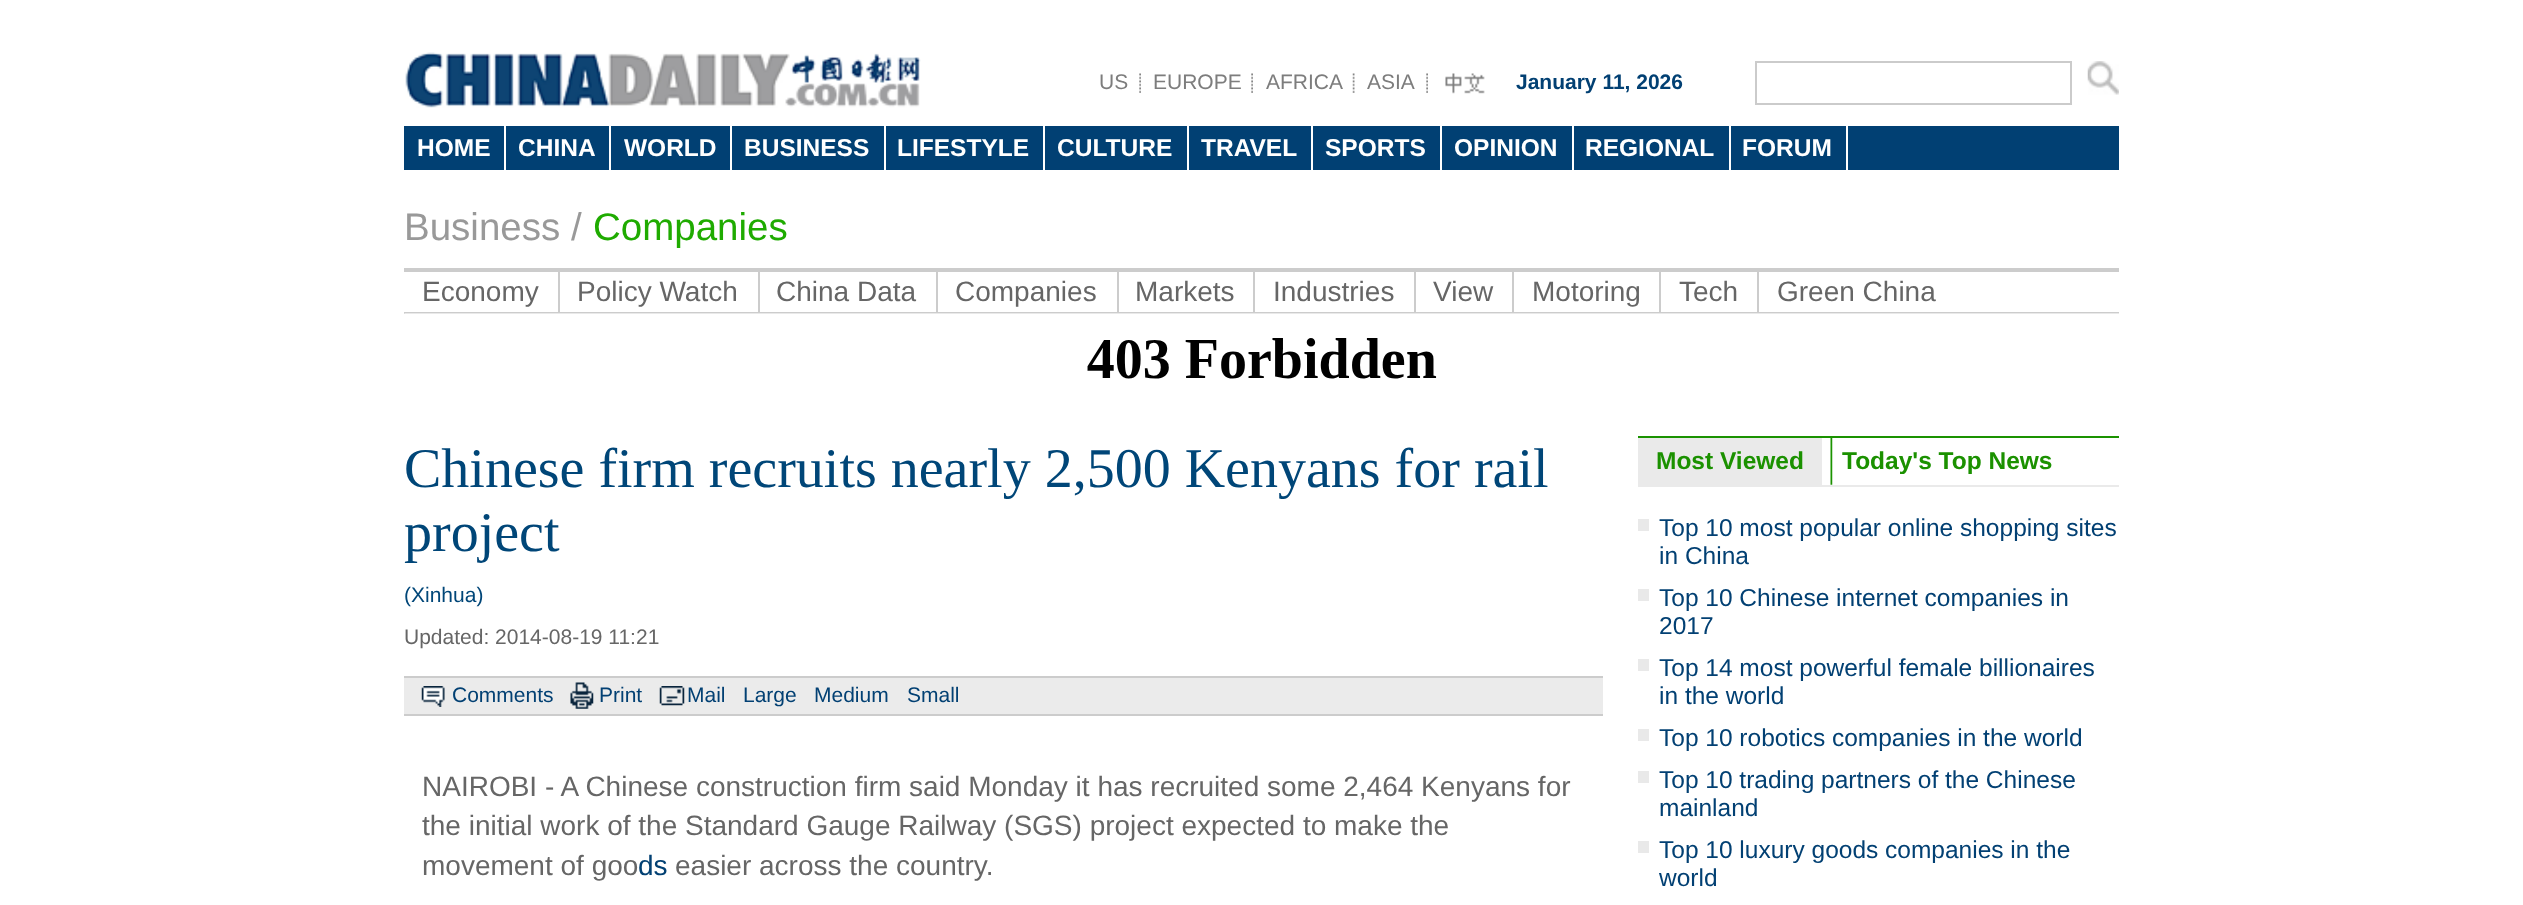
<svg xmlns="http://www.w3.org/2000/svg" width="2523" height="905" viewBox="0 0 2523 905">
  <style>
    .t1 { font: 21px Liberation Sans; fill: #7d7d7d; }
    .t2 { font: bold 21px Liberation Sans; fill: #024073; }
    .t3 { font: bold 24.5px Liberation Sans; fill: #fff; }
    .t4 { font: 38.5px Liberation Sans; fill: #999; }
    .t5 { font: 38.5px Liberation Sans; fill: #1fab00; }
    .t6 { font: 28px Liberation Sans; fill: #666; }
    .t7 { font: 56px Liberation Serif; fill: #004678; }
    .t8 { font: 21px Liberation Sans; fill: #004678; }
    .t9 { font: 21px Liberation Sans; fill: #666; }
    .t10 { font: 21px Liberation Sans; fill: #024073; }
    .t11 { font: 28px Liberation Sans; fill: #024073; }
    .t12 { font: bold 24.5px Liberation Sans; fill: #1b9100; }
    .t13 { font: 24.5px Liberation Sans; fill: #024073; }
  </style>
  <rect width="100%" height="100%" fill="#fff"/>
  <image x="405" y="52" width="516" height="56" href="images/1.png"/>
  <image x="1139" y="73" width="2" height="20" href="images/2.png"/>
  <text x="1099" y="89" class="t1">US</text>
  <image x="1251" y="73" width="2" height="20" href="images/2.png"/>
  <text x="1153" y="89" class="t1">EUROPE</text>
  <image x="1352" y="73" width="3" height="20" href="images/3.png"/>
  <text x="1266" y="89" class="t1">AFRICA</text>
  <image x="1426" y="73" width="2" height="20" href="images/2.png"/>
  <text x="1367" y="89" class="t1">ASIA</text>
  <image x="1445" y="73" width="40" height="21" href="images/4.png"/>
  <text x="1516" y="89" class="t2">January 11, 2026</text>
  <rect x="1756" y="62" width="315" height="42" fill="none" stroke="#cbcbcb" stroke-width="2"/>
  <image x="2087" y="61" width="32" height="34" href="images/5.png"/>
  <rect x="404" y="126" width="1715" height="44" fill="#014073"/>
  <rect x="504" y="126" width="2" height="44" fill="#fff"/>
  <text x="417" y="156" class="t3">HOME</text>
  <rect x="609" y="126" width="2" height="44" fill="#fff"/>
  <text x="518" y="156" class="t3">CHINA</text>
  <rect x="730" y="126" width="2" height="44" fill="#fff"/>
  <text x="624" y="156" class="t3">WORLD</text>
  <rect x="884" y="126" width="2" height="44" fill="#fff"/>
  <text x="744" y="156" class="t3">BUSINESS</text>
  <rect x="1043" y="126" width="2" height="44" fill="#fff"/>
  <text x="897" y="156" class="t3">LIFESTYLE</text>
  <rect x="1187" y="126" width="2" height="44" fill="#fff"/>
  <text x="1057" y="156" class="t3">CULTURE</text>
  <rect x="1311" y="126" width="2" height="44" fill="#fff"/>
  <text x="1201" y="156" class="t3">TRAVEL</text>
  <rect x="1440" y="126" width="2" height="44" fill="#fff"/>
  <text x="1325" y="156" class="t3">SPORTS</text>
  <rect x="1572" y="126" width="2" height="44" fill="#fff"/>
  <text x="1454" y="156" class="t3">OPINION</text>
  <rect x="1729" y="126" width="2" height="44" fill="#fff"/>
  <text x="1585" y="156" class="t3">REGIONAL</text>
  <rect x="1846" y="126" width="2" height="44" fill="#fff"/>
  <text x="1742" y="156" class="t3">FORUM</text>
  <text x="404" y="240" class="t4">Business /</text>
  <text x="593" y="240" class="t5">Companies</text>
  <rect x="404" y="268" width="1715" height="4" fill="#ccc"/>
  <rect x="404" y="312" width="1715" height="2" fill="#ccc"/>
  <rect x="558" y="271" width="2" height="41" fill="#ccc"/>
  <text x="422" y="301" class="t6">Economy</text>
  <rect x="758" y="271" width="2" height="41" fill="#ccc"/>
  <text x="577" y="301" class="t6">Policy Watch</text>
  <rect x="936" y="271" width="2" height="41" fill="#ccc"/>
  <text x="776" y="301" class="t6">China Data</text>
  <rect x="1117" y="271" width="2" height="41" fill="#ccc"/>
  <text x="955" y="301" class="t6">Companies</text>
  <rect x="1253" y="271" width="2" height="41" fill="#ccc"/>
  <text x="1135" y="301" class="t6">Markets</text>
  <rect x="1414" y="271" width="2" height="41" fill="#ccc"/>
  <text x="1273" y="301" class="t6">Industries</text>
  <rect x="1512" y="271" width="2" height="41" fill="#ccc"/>
  <text x="1433" y="301" class="t6">View</text>
  <rect x="1659" y="271" width="2" height="41" fill="#ccc"/>
  <text x="1532" y="301" class="t6">Motoring</text>
  <rect x="1757" y="271" width="2" height="41" fill="#ccc"/>
  <text x="1679" y="301" class="t6">Tech</text>
  <text x="1777" y="301" class="t6">Green China</text>
  <image x="404" y="313" width="1715" height="66" href="images/6.png"/>
  <text x="404" y="487" class="t7">Chinese firm recruits nearly 2,500 Kenyans for rail</text>
  <text x="404" y="551" class="t7">project</text>
  <text x="404" y="602" class="t8">(Xinhua)</text>
  <text x="404" y="644" class="t9">Updated: 2014-08-19 11:21</text>
  <rect x="404" y="678" width="1199" height="36" fill="#ebebeb"/>
  <rect x="404" y="676" width="1199" height="2" fill="#ccc"/>
  <rect x="404" y="714" width="1199" height="2" fill="#ccc"/>
  <image x="421" y="686" width="24" height="21" href="images/7.png"/>
  <text x="452" y="702" class="t10">Comments</text>
  <image x="570" y="682" width="24" height="27" href="images/8.png"/>
  <text x="599" y="702" class="t10">Print</text>
  <image x="659" y="686" width="26" height="20" href="images/9.png"/>
  <text x="687" y="702" class="t10">Mail</text>
  <text x="743" y="702" class="t10">Large</text>
  <text x="814" y="702" class="t10">Medium</text>
  <text x="907" y="702" class="t10">Small</text>
  <text x="422" y="796" class="t6">NAIROBI - A Chinese construction firm said Monday it has recruited some 2,464 Kenyans for</text>
  <text x="422" y="835" class="t6">the initial work of the Standard Gauge Railway (SGS) project expected to make the</text>
  <text x="422" y="875" class="t6">movement of goo</text>
  <text x="638" y="875" class="t11">ds</text>
  <text x="675" y="875" class="t6">easier across the country.</text>
  <image x="1830" y="438" width="3" height="47" href="images/10.png"/>
  <rect x="1638" y="436" width="481" height="2" fill="#1a9200"/>
  <rect x="1638" y="485" width="481" height="2" fill="#eaeaea"/>
  <rect x="1638" y="438" width="184" height="47" fill="#eaeaea"/>
  <text x="1656" y="469" class="t12">Most Viewed</text>
  <text x="1842" y="469" class="t12">Today's Top News</text>
  <rect x="1638" y="519" width="11" height="12" fill="#e9e9e9"/>
  <text x="1659" y="536" class="t13">Top 10 most popular online shopping sites</text>
  <text x="1659" y="564" class="t13">in China</text>
  <rect x="1638" y="589" width="11" height="12" fill="#e9e9e9"/>
  <text x="1659" y="606" class="t13">Top 10 Chinese internet companies in</text>
  <text x="1659" y="634" class="t13">2017</text>
  <rect x="1638" y="659" width="11" height="12" fill="#e9e9e9"/>
  <text x="1659" y="676" class="t13">Top 14 most powerful female billionaires</text>
  <text x="1659" y="704" class="t13">in the world</text>
  <rect x="1638" y="729" width="11" height="12" fill="#e9e9e9"/>
  <text x="1659" y="746" class="t13">Top 10 robotics companies in the world</text>
  <rect x="1638" y="771" width="11" height="12" fill="#e9e9e9"/>
  <text x="1659" y="788" class="t13">Top 10 trading partners of the Chinese</text>
  <text x="1659" y="816" class="t13">mainland</text>
  <rect x="1638" y="841" width="11" height="12" fill="#e9e9e9"/>
  <text x="1659" y="858" class="t13">Top 10 luxury goods companies in the</text>
  <text x="1659" y="886" class="t13">world</text>
</svg>
